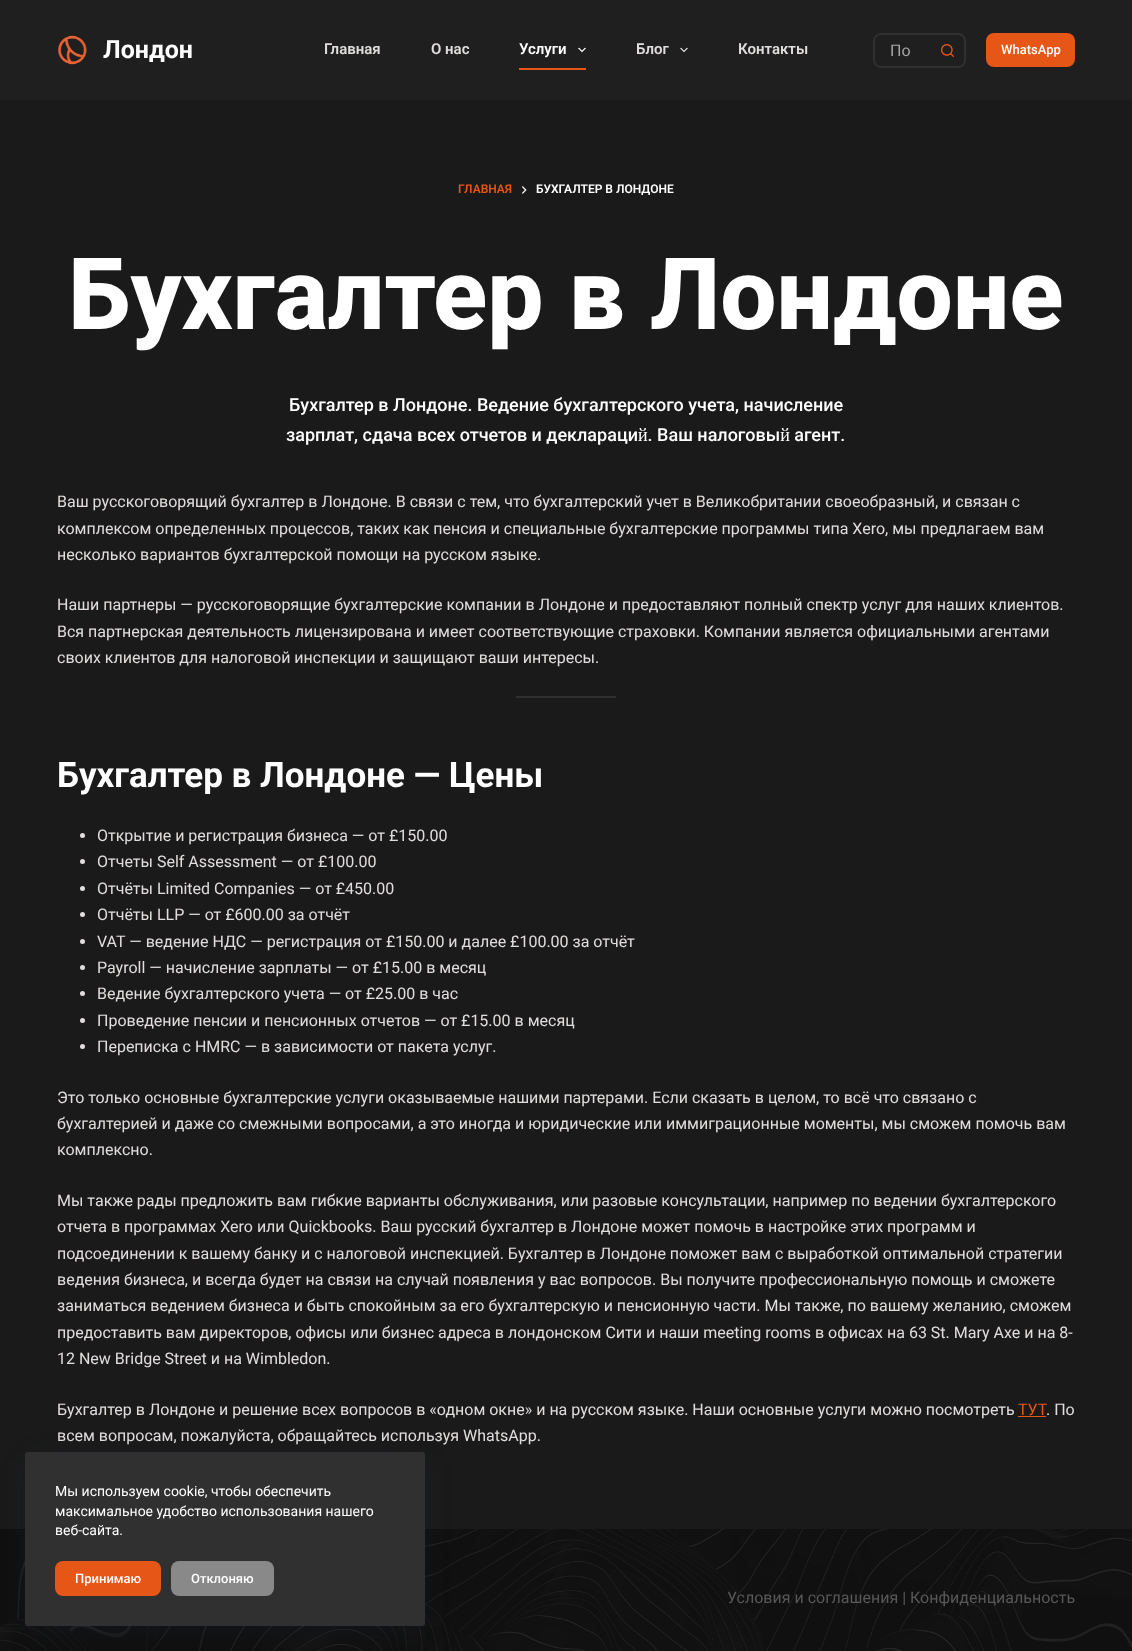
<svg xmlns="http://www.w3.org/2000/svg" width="1132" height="1651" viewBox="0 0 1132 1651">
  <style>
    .t1 { font: bold 25px Roboto; fill: #fff; }
    .t2 { font: 600 15px Roboto; fill: #e2dddd; }
    .t3 { font: 600 15px Roboto; fill: #fff; }
    .t4 { font: 16px Roboto; fill: #a5a5a5; }
    .t5 { font: 500 13px Roboto; fill: #fff; }
    .t6 { font: 600 12px Roboto; fill: #e65616; }
    .t7 { font: 600 12px Roboto; fill: #fff; }
    .t8 { font: 800 100px Roboto; fill: #fff; }
    .t9 { font: 500 18px Roboto; fill: #fff; }
    .t10 { font: 16px Roboto; fill: #e2dddd; }
    .t11 { font: bold 35px Roboto; fill: #fff; }
    .t12 { font: 16px Roboto; fill: #e65616; }
    .t13 { font: 16px Roboto; fill: #585858; }
    .t14 { font: 14px Roboto; fill: #fff; }
  </style>
  <rect width="100%" height="100%" fill="#121212"/>
  <rect x="0" y="0" width="1132" height="100" fill="#1f1f1f"/>
  <image x="58" y="35" width="29" height="30" href="images/1.png"/>
  <text x="103" y="58" class="t1">Лондон</text>
  <text x="324" y="54" class="t2">Главная</text>
  <text x="431" y="54" class="t2">О нас</text>
  <text x="519" y="54" class="t3">Услуги</text>
  <image x="578" y="47" width="8" height="6" href="images/2.png"/>
  <rect x="519" y="68" width="67" height="2" fill="#e65616"/>
  <text x="636" y="54" class="t2">Блог</text>
  <image x="680" y="47" width="8" height="6" href="images/3.png"/>
  <text x="738" y="54" class="t2">Контакты</text>
  <path d="M881 33H931V68H881C877 68 873 64 873 60V41C873 37 877 33 881 33ZM881 35H931V66H881C878 66 875 63 875 60V41C875 38 878 35 881 35Z" fill="#303030" fill-rule="evenodd"/>
  <text x="890" y="56" class="t4">По</text>
  <path d="M931 33H958C962.5 33 966 36.5 966 41V60C966 64.5 962.5 68 958 68H931ZM931 35H958C961.5 35 964 37.5 964 41V60C964 63.5 961.5 66 958 66H931Z" fill="#303030" fill-rule="evenodd"/>
  <image x="941" y="44" width="13" height="13" href="images/4.png"/>
  <rect x="986" y="33" width="89" height="34" rx="8" fill="#e65616"/>
  <text x="1001" y="54" class="t5">WhatsApp</text>
  <rect x="0" y="100" width="1132" height="1429" fill="#1a1a1a"/>
  <text x="458" y="193" class="t6">ГЛАВНАЯ</text>
  <image x="522" y="186" width="5" height="8" href="images/5.png"/>
  <text x="536" y="193" class="t7">БУХГАЛТЕР В ЛОНДОНЕ</text>
  <text x="68" y="329" class="t8">Бухгалтер в Лондоне</text>
  <text x="289" y="411" class="t9">Бухгалтер в Лондоне. Ведение бухгалтерского учета, начисление</text>
  <text x="286" y="441" class="t9">зарплат, сдача всех отчетов и деклараций. Ваш налоговый агент.</text>
  <text x="57" y="507" class="t10">Ваш русскоговорящий бухгалтер в Лондоне. В связи с тем, что бухгалтерский учет в Великобритании своеобразный, и связан с</text>
  <text x="57" y="534" class="t10">комплексом определенных процессов, таких как пенсия и специальные бухгалтерские программы типа Xero, мы предлагаем вам</text>
  <text x="57" y="560" class="t10">несколько вариантов бухгалтерской помощи на русском языке.</text>
  <text x="57" y="610" class="t10">Наши партнеры — русскоговорящие бухгалтерские компании в Лондоне и предоставляют полный спектр услуг для наших клиентов.</text>
  <text x="57" y="637" class="t10">Вся партнерская деятельность лицензирована и имеет соответствующие страховки. Компании является официальными агентами</text>
  <text x="57" y="663" class="t10">своих клиентов для налоговой инспекции и защищают ваши интересы.</text>
  <rect x="516" y="696" width="100" height="2" fill="#303030"/>
  <text x="57" y="787" class="t11">Бухгалтер в Лондоне — Цены</text>
  <circle cx="82.5" cy="835.5" r="2.5" fill="#e2dddd"/>
  <text x="97" y="841" class="t10">Открытие и регистрация бизнеса — от £150.00</text>
  <circle cx="82.5" cy="861.5" r="2.5" fill="#e2dddd"/>
  <text x="97" y="867" class="t10">Отчеты Self Assessment — от £100.00</text>
  <circle cx="82.5" cy="888.5" r="2.5" fill="#e2dddd"/>
  <text x="97" y="894" class="t10">Отчёты Limited Companies — от £450.00</text>
  <circle cx="82.5" cy="914.5" r="2.5" fill="#e2dddd"/>
  <text x="97" y="920" class="t10">Отчёты LLP — от £600.00 за отчёт</text>
  <circle cx="82.5" cy="941.5" r="2.5" fill="#e2dddd"/>
  <text x="97" y="947" class="t10">VAT — ведение НДС — регистрация от £150.00 и далее £100.00 за отчёт</text>
  <circle cx="82.5" cy="967.5" r="2.5" fill="#e2dddd"/>
  <text x="97" y="973" class="t10">Payroll — начисление зарплаты — от £15.00 в месяц</text>
  <circle cx="82.5" cy="993.5" r="2.5" fill="#e2dddd"/>
  <text x="97" y="999" class="t10">Ведение бухгалтерского учета — от £25.00 в час</text>
  <circle cx="82.5" cy="1020.5" r="2.5" fill="#e2dddd"/>
  <text x="97" y="1026" class="t10">Проведение пенсии и пенсионных отчетов — от £15.00 в месяц</text>
  <circle cx="82.5" cy="1046.5" r="2.5" fill="#e2dddd"/>
  <text x="97" y="1052" class="t10">Переписка с HMRC — в зависимости от пакета услуг.</text>
  <text x="57" y="1103" class="t10">Это только основные бухгалтерские услуги оказываемые нашими партерами. Если сказать в целом, то всё что связано с</text>
  <text x="57" y="1129" class="t10">бухгалтерией и даже со смежными вопросами, а это иногда и юридические или иммиграционные моменты, мы сможем помочь вам</text>
  <text x="57" y="1155" class="t10">комплексно.</text>
  <text x="57" y="1206" class="t10">Мы также рады предложить вам гибкие варианты обслуживания, или разовые консультации, например по ведении бухгалтерского</text>
  <text x="57" y="1232" class="t10">отчета в программах Xero или Quickbooks. Ваш русский бухгалтер в Лондоне может помочь в настройке этих программ и</text>
  <text x="57" y="1259" class="t10">подсоединении к вашему банку и с налоговой инспекцией. Бухгалтер в Лондоне поможет вам с выработкой оптимальной стратегии</text>
  <text x="57" y="1285" class="t10">ведения бизнеса, и всегда будет на связи на случай появления у вас вопросов. Вы получите профессиональную помощь и сможете</text>
  <text x="57" y="1311" class="t10">заниматься ведением бизнеса и быть спокойным за его бухгалтерскую и пенсионную части. Мы также, по вашему желанию, сможем</text>
  <text x="57" y="1338" class="t10">предоставить вам директоров, офисы или бизнес адреса в лондонском Сити и наши meeting rooms в офисах на 63 St. Mary Axe и на 8-</text>
  <text x="57" y="1364" class="t10">12 New Bridge Street и на Wimbledon.</text>
  <text x="57" y="1415" class="t10">Бухгалтер в Лондоне и решение всех вопросов в «одном окне» и на русском языке. Наши основные услуги можно посмотреть</text>
  <text x="1018" y="1415" class="t12">ТУТ</text>
  <rect x="1018" y="1416" width="28" height="1" fill="#e65616"/>
  <text x="1046" y="1415" class="t10">. По</text>
  <text x="57" y="1441" class="t10">всем вопросам, пожалуйста, обращайтесь используя WhatsApp.</text>
  <image x="0" y="1529" width="1132" height="122" href="images/6.png"/>
  <text x="727" y="1603" class="t13">Условия и соглашения | Конфиденциальность</text>
  <rect x="30" y="1462" width="390" height="164" fill="#22386526" filter="blur(15px)"/>
  <rect x="25" y="1452" width="400" height="174" rx="3" fill="#303030"/>
  <text x="55" y="1496" class="t14">Мы используем cookie, чтобы обеспечить</text>
  <text x="55" y="1516" class="t14">максимальное удобство использования нашего</text>
  <text x="55" y="1535" class="t14">веб-сайта.</text>
  <rect x="55" y="1561" width="106" height="35" rx="8" fill="#e65616"/>
  <text x="75" y="1583" class="t5">Принимаю</text>
  <rect x="171" y="1561" width="103" height="35" rx="8" fill="#898989"/>
  <text x="191" y="1583" class="t5">Отклоняю</text>
</svg>
